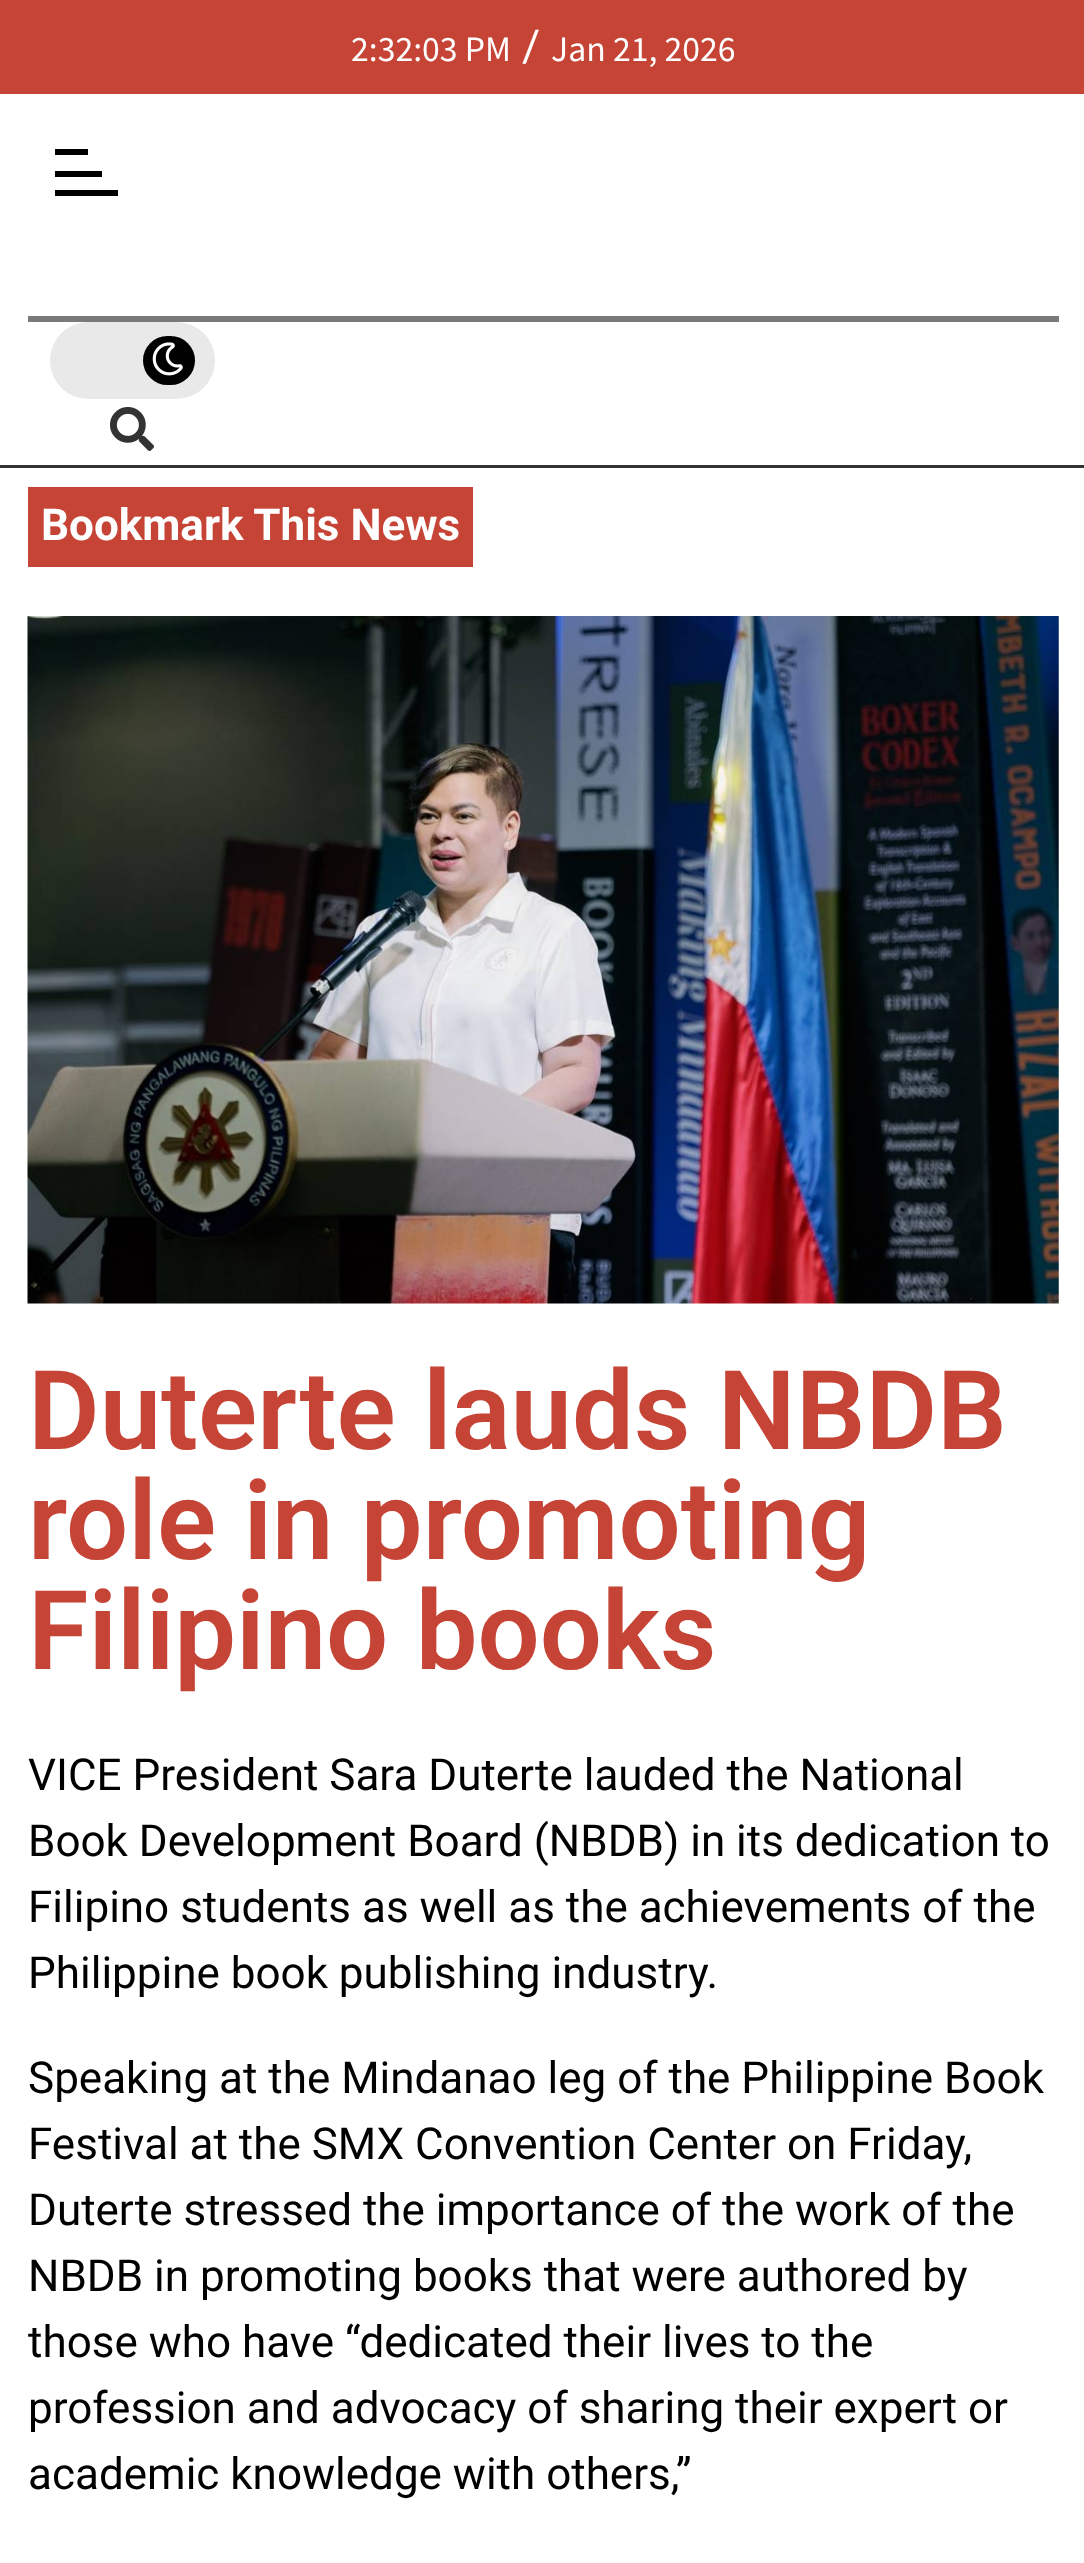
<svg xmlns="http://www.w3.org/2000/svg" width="1084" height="2563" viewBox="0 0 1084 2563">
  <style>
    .t1 { font: 35.75px Source Sans Pro; fill: #fff; }
    .t2 { font: 44px Roboto; fill: #fff; }
    .t3 { font: bold 44px Roboto; fill: #fff; }
    .t4 { font: 600 110px Roboto; fill: #c64435; }
    .t5 { font: 44px Roboto; fill: #000; }
  </style>
  <rect width="100%" height="100%" fill="#fff"/>
  <rect x="0" y="0" width="1084" height="94" fill="#c64435"/>
  <text x="351" y="61" class="t1">2:32:03 PM</text>
  <text x="522" y="61" class="t2">/</text>
  <text x="551" y="61" class="t1">Jan 21, 2026</text>
  <rect x="0" y="465" width="1084" height="3" fill="#333"/>
  <rect x="55" y="149" width="33" height="6" fill="#000"/>
  <rect x="55" y="171" width="47" height="6" fill="#000"/>
  <rect x="55" y="190" width="63" height="6" fill="#000"/>
  <rect x="28" y="316" width="1031" height="6" fill="#7a7a7a"/>
  <rect x="50" y="322" width="165" height="77" rx="38.5" fill="#e9e9e9"/>
  <rect x="143" y="336" width="52" height="49" rx="24.5" fill="#000"/>
  <image x="152" y="342" width="31" height="34" href="images/1.png"/>
  <image x="110" y="407" width="44" height="44" href="images/2.png"/>
  <rect x="28" y="487" width="445" height="80" fill="#c64435"/>
  <text x="41" y="540" class="t3">Bookmark This News</text>
  <image x="27" y="616" width="1032" height="688" href="images/3.png"/>
  <text x="28" y="1449" class="t4">Duterte lauds NBDB</text>
  <text x="28" y="1559" class="t4">role in promoting</text>
  <text x="28" y="1669" class="t4">Filipino books</text>
  <text x="28" y="1790" class="t5">VICE President Sara Duterte lauded the National</text>
  <text x="28" y="1856" class="t5">Book Development Board (NBDB) in its dedication to</text>
  <text x="28" y="1922" class="t5">Filipino students as well as the achievements of the</text>
  <text x="28" y="1988" class="t5">Philippine book publishing industry.</text>
  <text x="28" y="2093" class="t5">Speaking at the Mindanao leg of the Philippine Book</text>
  <text x="28" y="2159" class="t5">Festival at the SMX Convention Center on Friday,</text>
  <text x="28" y="2225" class="t5">Duterte stressed the importance of the work of the</text>
  <text x="28" y="2291" class="t5">NBDB in promoting books that were authored by</text>
  <text x="28" y="2357" class="t5">those who have “dedicated their lives to the</text>
  <text x="28" y="2423" class="t5">profession and advocacy of sharing their expert or</text>
  <text x="28" y="2489" class="t5">academic knowledge with others,”</text>
</svg>
